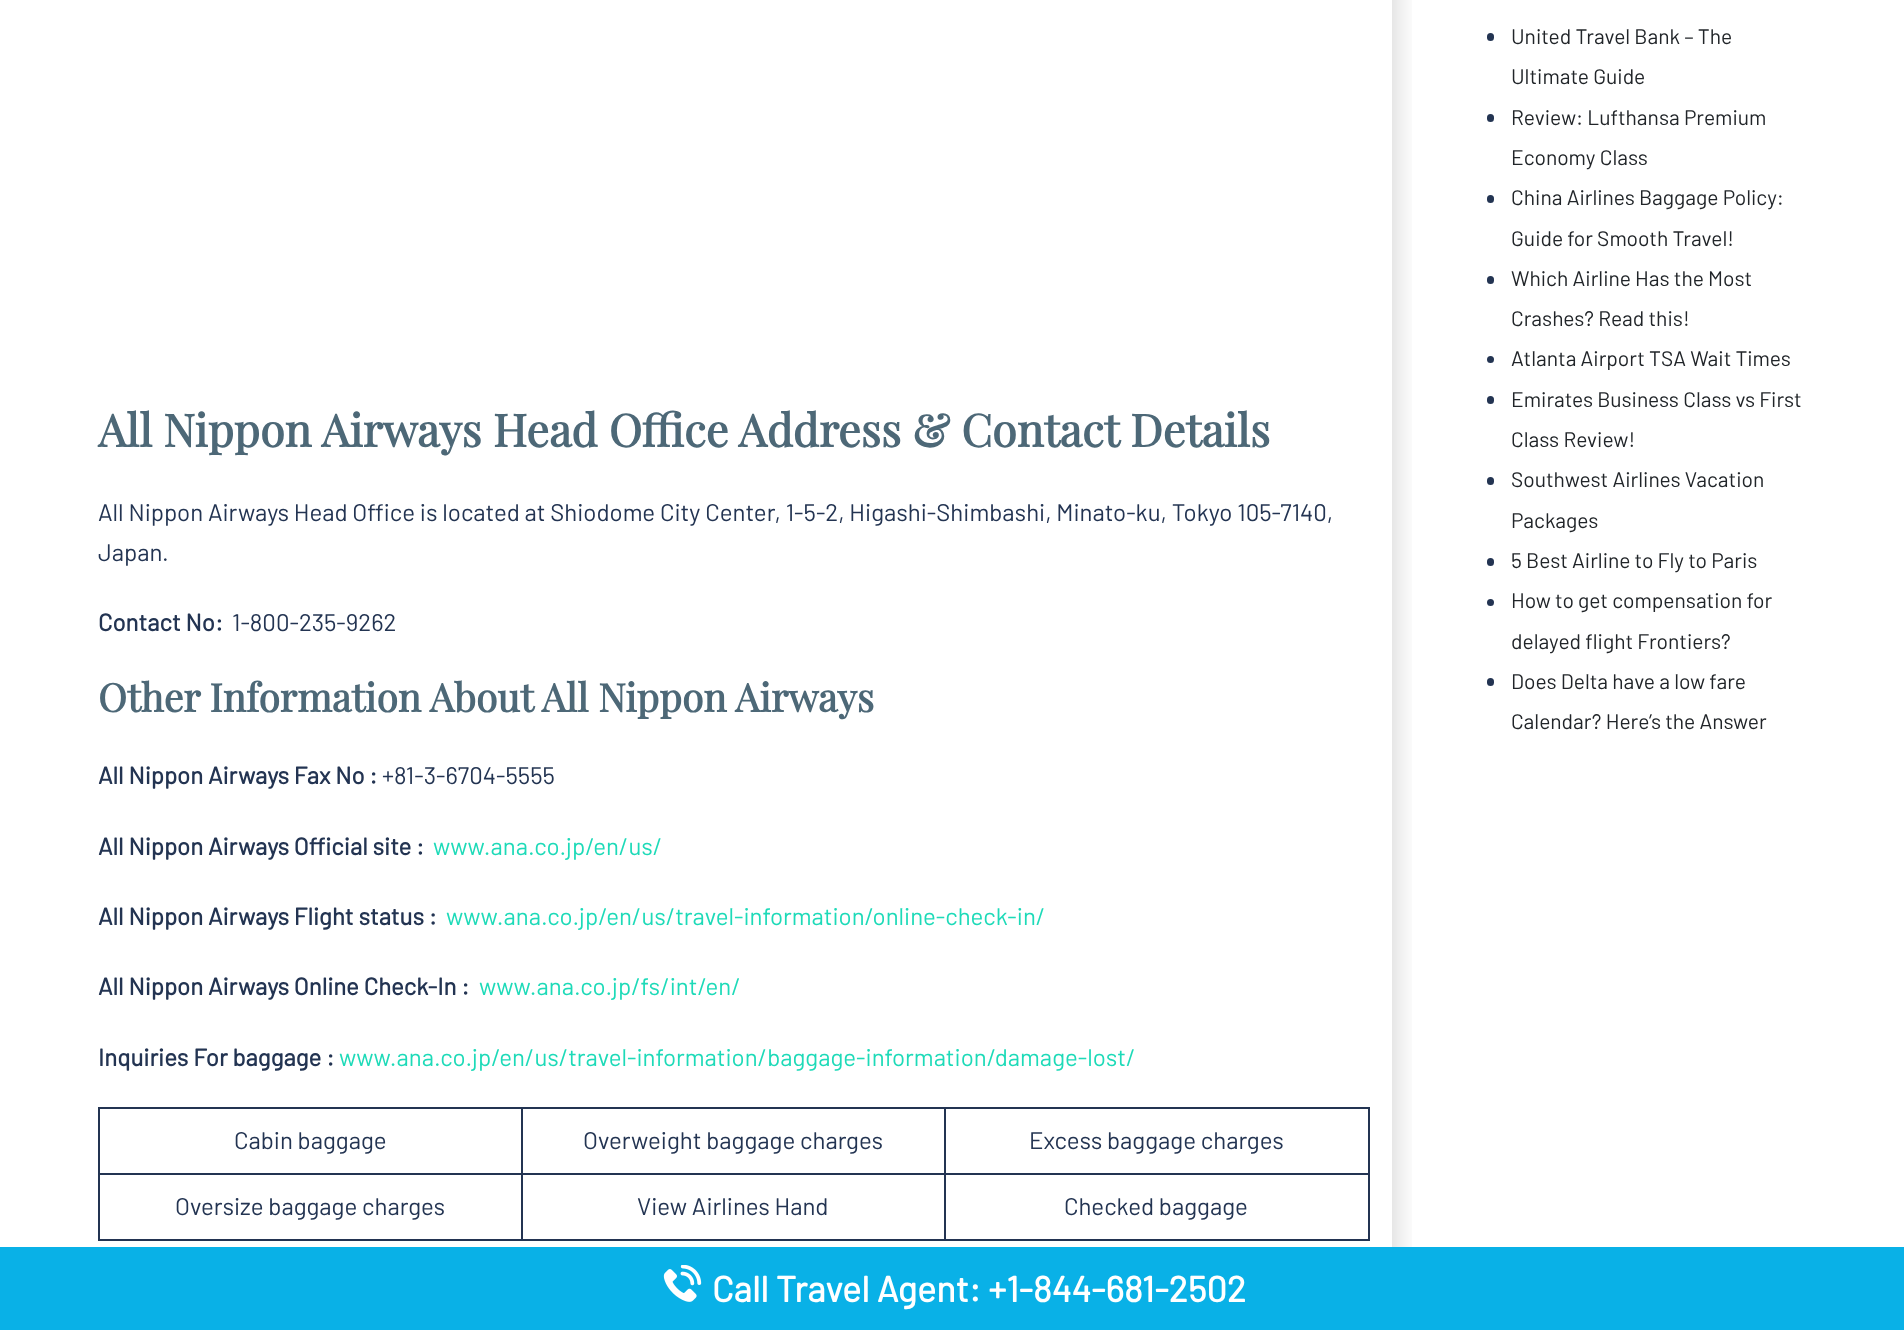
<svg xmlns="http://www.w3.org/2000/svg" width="1904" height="1330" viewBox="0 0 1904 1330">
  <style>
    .t1 { font: bold 45px Playfair Display; fill: #4d6877; }
    .t2 { font: 24px Barlow; fill: #233452; }
    .t3 { font: bold 24px Barlow; fill: #233452; }
    .t4 { font: bold 39px Playfair Display; fill: #4d6877; }
    .t5 { font: 24px Barlow; fill: #1ddab8; }
    .t6 { font: 21px Barlow; fill: #212529; }
    .t7 { font: bold 36px Barlow; fill: #fff; }
  </style>
  <defs>
    <clipPath id="clip1"><rect x="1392" y="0" width="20" height="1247"/></clipPath>
  </defs>
  <rect width="100%" height="100%" fill="#fff"/>
  <g clip-path="url(#clip1)">
    <rect x="125" y="-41" width="1272" height="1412" fill="#00000026" filter="blur(13.5px)"/>
  </g>
  <text x="98" y="447" class="t1">All Nippon Airways Head Office Address &amp; Contact Details</text>
  <text x="98" y="521" class="t2">All Nippon Airways Head Office is located at Shiodome City Center, 1-5-2, Higashi-Shimbashi, Minato-ku, Tokyo 105-7140,</text>
  <text x="98" y="561" class="t2">Japan.</text>
  <text x="98" y="631" class="t3">Contact No:</text>
  <text x="232" y="631" class="t2">1-800-235-9262</text>
  <text x="98" y="712" class="t4">Other Information About All Nippon Airways</text>
  <text x="98" y="784" class="t3">All Nippon Airways Fax No :</text>
  <text x="382" y="784" class="t2">+81-3-6704-5555</text>
  <text x="98" y="855" class="t3">All Nippon Airways Official site :</text>
  <text x="433" y="855" class="t5">www.ana.co.jp/en/us/</text>
  <text x="98" y="925" class="t3">All Nippon Airways Flight status :</text>
  <text x="446" y="925" class="t5">www.ana.co.jp/en/us/travel-information/online-check-in/</text>
  <text x="98" y="995" class="t3">All Nippon Airways Online Check-In :</text>
  <text x="479" y="995" class="t5">www.ana.co.jp/fs/int/en/</text>
  <text x="98" y="1066" class="t3">Inquiries For baggage :</text>
  <text x="339" y="1066" class="t5">www.ana.co.jp/en/us/travel-information/baggage-information/damage-lost/</text>
  <rect x="944" y="1107" width="426" height="2" fill="#233452"/>
  <rect x="944" y="1173" width="426" height="2" fill="#233452"/>
  <rect x="1368" y="1173" width="2" height="68" fill="#233452"/>
  <rect x="944" y="1239" width="426" height="2" fill="#233452"/>
  <rect x="944" y="1173" width="2" height="68" fill="#233452"/>
  <rect x="521" y="1173" width="424" height="2" fill="#233452"/>
  <rect x="944" y="1107" width="2" height="68" fill="#233452"/>
  <rect x="521" y="1107" width="424" height="2" fill="#233452"/>
  <rect x="521" y="1239" width="424" height="2" fill="#233452"/>
  <rect x="521" y="1173" width="2" height="68" fill="#233452"/>
  <rect x="98" y="1173" width="424" height="2" fill="#233452"/>
  <rect x="521" y="1107" width="2" height="68" fill="#233452"/>
  <rect x="98" y="1107" width="424" height="2" fill="#233452"/>
  <rect x="98" y="1239" width="424" height="2" fill="#233452"/>
  <rect x="98" y="1173" width="2" height="68" fill="#233452"/>
  <rect x="98" y="1107" width="2" height="68" fill="#233452"/>
  <text x="234" y="1149" class="t2">Cabin baggage</text>
  <text x="583" y="1149" class="t2">Overweight baggage charges</text>
  <rect x="1368" y="1107" width="2" height="68" fill="#233452"/>
  <text x="1029" y="1149" class="t2">Excess baggage charges</text>
  <text x="175" y="1215" class="t2">Oversize baggage charges</text>
  <text x="637" y="1215" class="t2">View Airlines Hand</text>
  <text x="1064" y="1215" class="t2">Checked baggage</text>
  <rect x="1487" y="33" width="7" height="8" rx="3.5" fill="#233452"/>
  <text x="1511" y="44" class="t6">United Travel Bank – The</text>
  <text x="1511" y="84" class="t6">Ultimate Guide</text>
  <rect x="1487" y="114" width="7" height="8" rx="3.5" fill="#233452"/>
  <text x="1511" y="125" class="t6">Review: Lufthansa Premium</text>
  <text x="1511" y="165" class="t6">Economy Class</text>
  <rect x="1487" y="195" width="7" height="8" rx="3.5" fill="#233452"/>
  <text x="1511" y="205" class="t6">China Airlines Baggage Policy:</text>
  <text x="1511" y="246" class="t6">Guide for Smooth Travel!</text>
  <rect x="1487" y="276" width="7" height="8" rx="3.5" fill="#233452"/>
  <text x="1511" y="286" class="t6">Which Airline Has the Most</text>
  <text x="1511" y="326" class="t6">Crashes? Read this!</text>
  <circle cx="1490.5" cy="359.5" r="3.5" fill="#233452"/>
  <text x="1511" y="366" class="t6">Atlanta Airport TSA Wait Times</text>
  <rect x="1487" y="396" width="7" height="8" rx="3.5" fill="#233452"/>
  <text x="1511" y="407" class="t6">Emirates Business Class vs First</text>
  <text x="1511" y="447" class="t6">Class Review!</text>
  <rect x="1487" y="477" width="7" height="8" rx="3.5" fill="#233452"/>
  <text x="1511" y="487" class="t6">Southwest Airlines Vacation</text>
  <text x="1511" y="528" class="t6">Packages</text>
  <rect x="1487" y="558" width="7" height="8" rx="3.5" fill="#233452"/>
  <text x="1511" y="568" class="t6">5 Best Airline to Fly to Paris</text>
  <circle cx="1490.5" cy="602.5" r="3.5" fill="#233452"/>
  <text x="1511" y="608" class="t6">How to get compensation for</text>
  <text x="1511" y="649" class="t6">delayed flight Frontiers?</text>
  <rect x="1487" y="678" width="7" height="8" rx="3.5" fill="#233452"/>
  <text x="1511" y="689" class="t6">Does Delta have a low fare</text>
  <text x="1511" y="729" class="t6">Calendar? Here’s the Answer</text>
  <rect x="0" y="1247" width="1904" height="83" fill="#09b1e7"/>
  <image x="663" y="1265" width="39" height="37" href="images/1.png"/>
  <text x="712" y="1302" class="t7">Call Travel Agent: +1-844-681-2502</text>
</svg>
